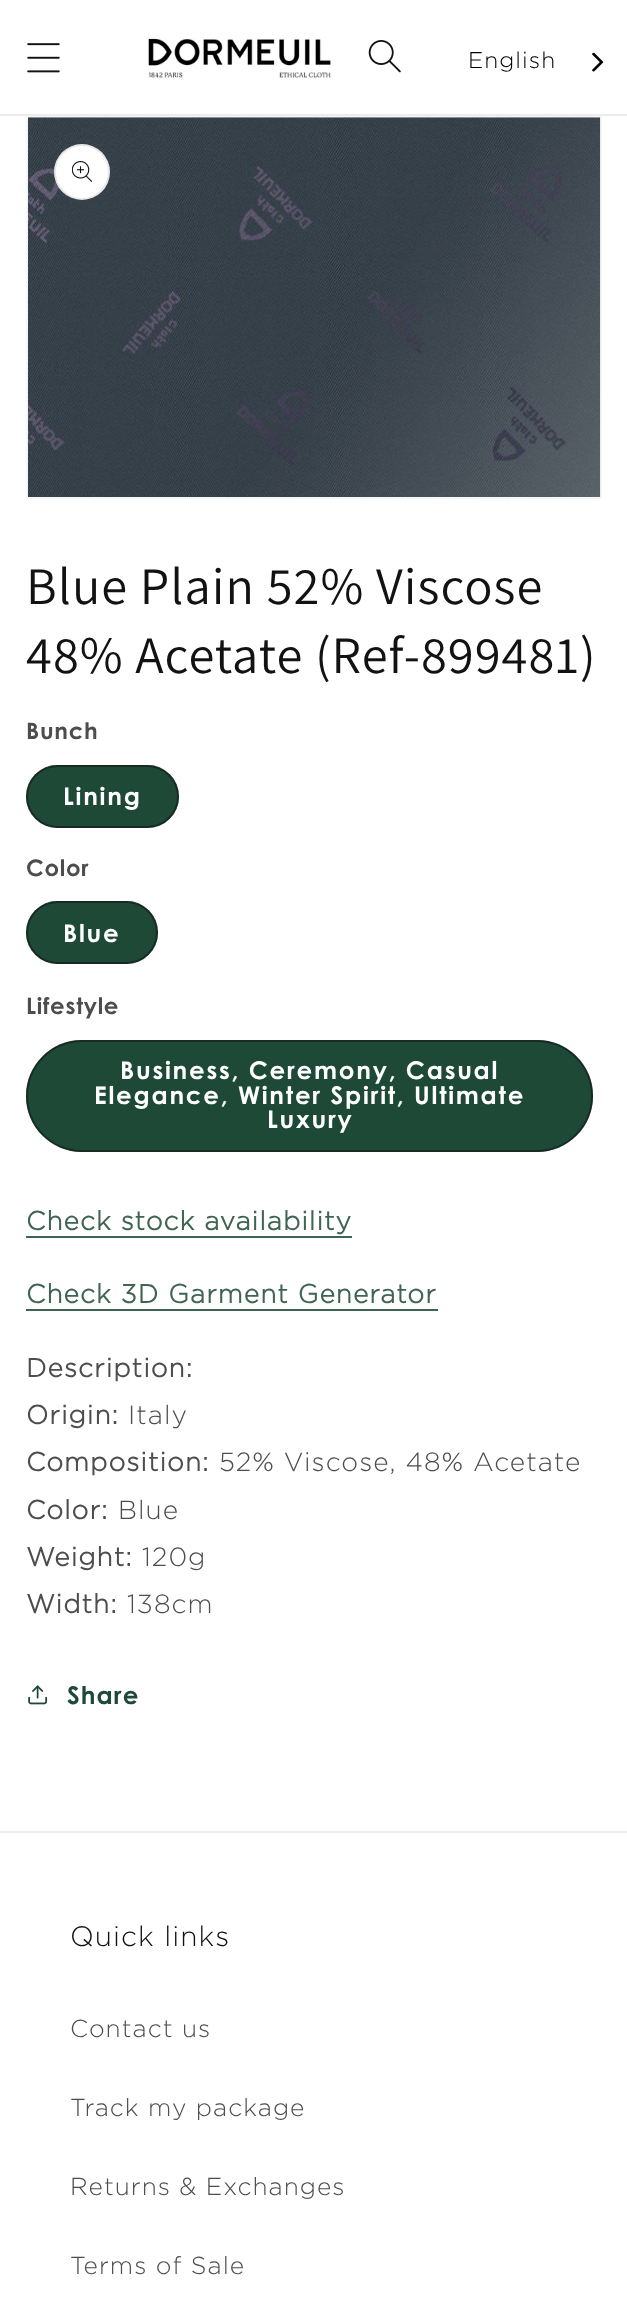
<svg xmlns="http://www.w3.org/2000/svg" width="627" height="2307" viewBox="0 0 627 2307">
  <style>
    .t1 { font: 300 22.75px Gotham; letter-spacing: 1.05px; fill: #000; }
    .t2 { font: 52.5px Assistant; letter-spacing: 1.05px; fill: #121212; }
    .t3 { font: bold 22.75px Century Gothic; letter-spacing: 0.75px; fill: #4d4d4d; }
    .t4 { font: bold 24.5px Century Gothic; letter-spacing: 1.75px; fill: #fff; }
    .t5 { font: bold 26.25px Gotham; letter-spacing: 1.05px; fill: #406454; }
    .t6 { font: bold 26.25px Gotham; letter-spacing: 1.05px; fill: #4d4d4d; }
    .t7 { font: 300 26.25px Gotham; letter-spacing: 1.05px; fill: #4d4d4d; }
    .t8 { font: bold 24.5px Century Gothic; letter-spacing: 1.05px; fill: #1e4936; }
    .t9 { font: 300 28px Gotham; letter-spacing: 1.05px; fill: #121212; }
    .t10 { font: 300 24.5px Gotham; letter-spacing: 1.05px; fill: #4d4d4d; }
  </style>
  <rect width="100%" height="100%" fill="#fff"/>
  <rect x="0" y="114" width="627" height="2" fill="#ececec"/>
  <image x="27" y="43" width="33" height="30" href="images/1.png"/>
  <image x="148" y="38" width="183" height="40" href="images/2.png"/>
  <image x="368" y="40" width="33" height="33" href="images/3.png"/>
  <text x="468" y="68" class="t1">English</text>
  <image x="592" y="52" width="12" height="20" href="images/4.png"/>
  <rect x="27" y="117" width="574" height="381" fill="none" stroke="#f6f6f6" stroke-width="2"/>
  <image x="28" y="117" width="573" height="380" href="images/5.png"/>
  <circle cx="82" cy="172" r="28" fill="#fff"/>
  <circle cx="82" cy="172" r="27" fill="none" stroke="#1212121a" stroke-width="2"/>
  <image x="72" y="161" width="20" height="21" href="images/6.png"/>
  <text x="26" y="604" class="t2">Blue Plain 52% Viscose</text>
  <text x="26" y="673" class="t2">48% Acetate (Ref-899481)</text>
  <text x="26" y="739" class="t3">Bunch</text>
  <rect x="26" y="765" width="153" height="63" rx="31.5" fill="#1e4936"/>
  <rect x="27" y="766" width="151" height="61" rx="30.5" fill="none" stroke="#1212128c" stroke-width="2"/>
  <text x="63" y="805" class="t4">Lining</text>
  <text x="26" y="876" class="t3">Color</text>
  <rect x="26" y="901" width="132" height="63" rx="31.5" fill="#1e4936"/>
  <rect x="27" y="902" width="130" height="61" rx="30.5" fill="none" stroke="#1212128c" stroke-width="2"/>
  <text x="63" y="942" class="t4">Blue</text>
  <text x="26" y="1014" class="t3">Lifestyle</text>
  <rect x="26" y="1040" width="567" height="112" rx="56" fill="#1e4936"/>
  <rect x="27" y="1041" width="565" height="110" rx="55" fill="none" stroke="#1212128c" stroke-width="2"/>
  <text x="120" y="1079" class="t4">Business, Ceremony, Casual</text>
  <text x="94" y="1104" class="t4">Elegance, Winter Spirit, Ultimate</text>
  <text x="267" y="1128" class="t4">Luxury</text>
  <text x="26" y="1230" class="t5">Check stock availability</text>
  <rect x="26" y="1236" width="326" height="2" fill="#406454"/>
  <text x="26" y="1303" class="t5">Check 3D Garment Generator</text>
  <rect x="26" y="1309" width="412" height="2" fill="#406454"/>
  <text x="26" y="1377" class="t6">Description:</text>
  <text x="26" y="1424" class="t6">Origin:</text>
  <text x="128" y="1424" class="t7">Italy</text>
  <text x="26" y="1471" class="t6">Composition:</text>
  <text x="219" y="1471" class="t7">52% Viscose, 48% Acetate</text>
  <text x="26" y="1519" class="t6">Color:</text>
  <text x="118" y="1519" class="t7">Blue</text>
  <text x="26" y="1566" class="t6">Weight:</text>
  <text x="142" y="1566" class="t7">120g</text>
  <text x="26" y="1613" class="t6">Width:</text>
  <text x="127" y="1613" class="t7">138cm</text>
  <image x="28" y="1685" width="20" height="20" href="images/7.png"/>
  <text x="67" y="1704" class="t8">Share</text>
  <rect x="0" y="1831" width="627" height="2" fill="#ececec"/>
  <text x="70" y="1946" class="t9">Quick links</text>
  <text x="70" y="2037" class="t10">Contact us</text>
  <text x="70" y="2116" class="t10">Track my package</text>
  <text x="70" y="2195" class="t10">Returns &amp; Exchanges</text>
  <text x="70" y="2274" class="t10">Terms of Sale</text>
</svg>
